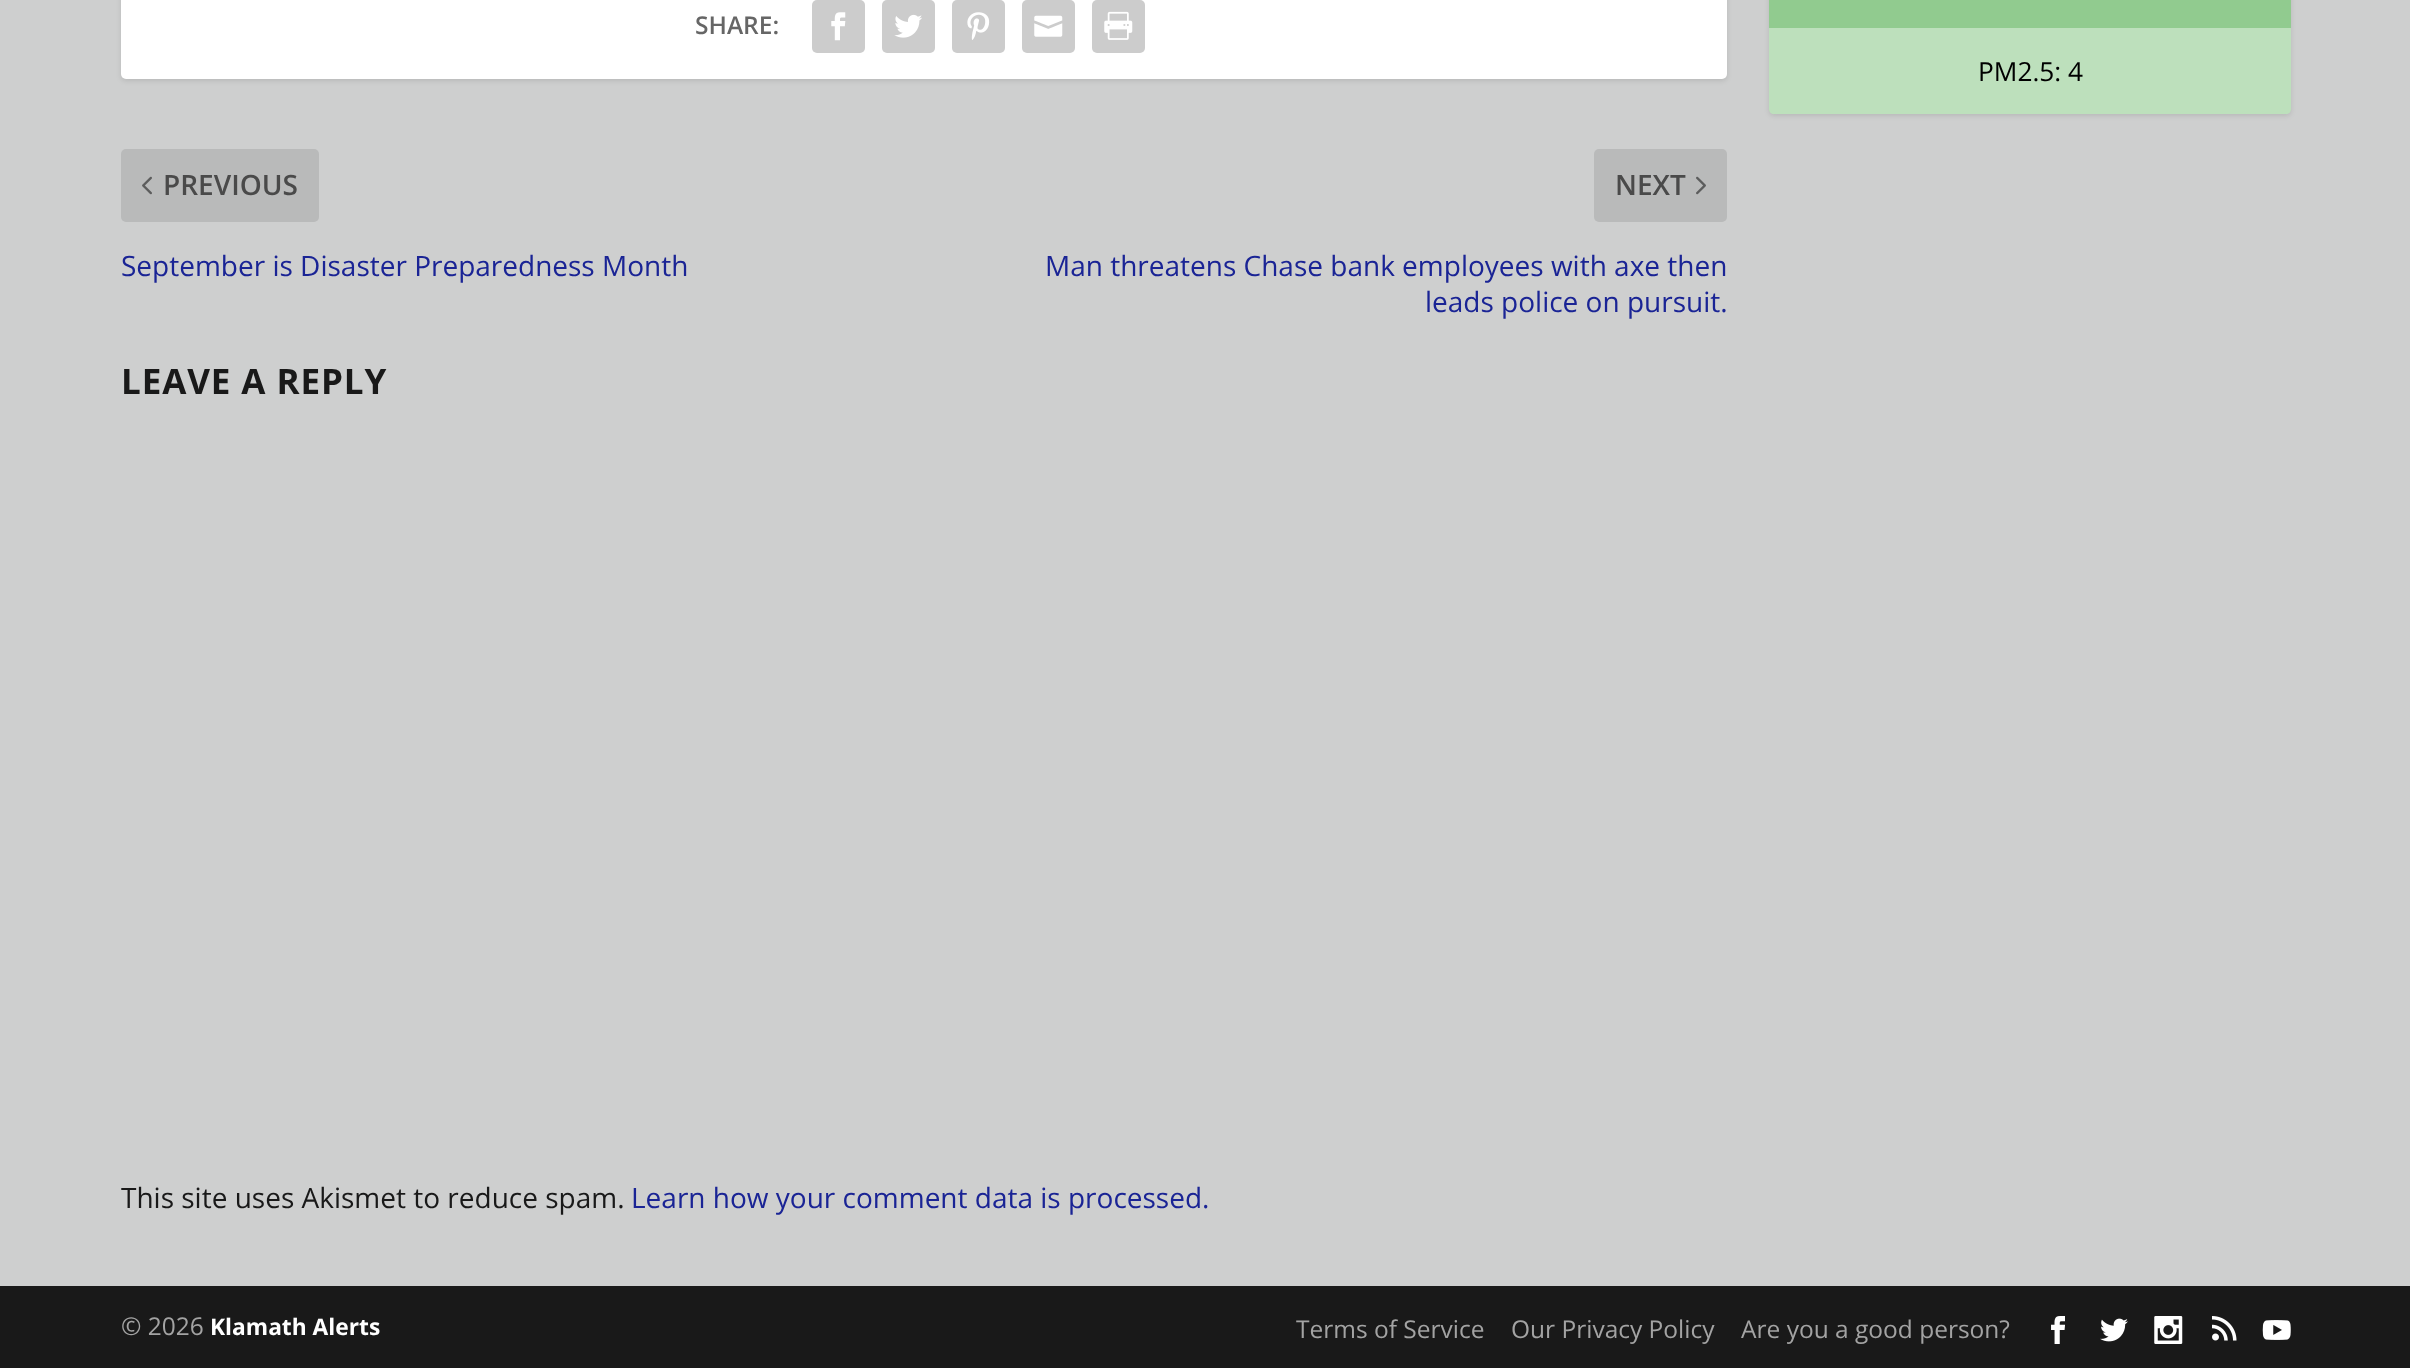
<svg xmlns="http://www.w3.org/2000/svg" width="2410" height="1368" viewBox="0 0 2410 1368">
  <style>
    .t1 { font: 600 24.5px Open Sans; fill: #666; }
    .t2 { font: 600 28px Open Sans; fill: #4a4a4a; }
    .t3 { font: 28px Open Sans; fill: #1a2495; }
    .t4 { font: bold 35px Open Sans; letter-spacing: 0.9px; fill: #191919; }
    .t5 { font: 28px Open Sans; fill: #191919; }
    .t6 { font: 26.25px Open Sans; fill: #000; }
    .t7 { font: 24.5px Open Sans; fill: #a3a3a3; }
    .t8 { font: bold 22.75px Open Sans; fill: #fff; }
  </style>
  <rect width="100%" height="100%" fill="#cecfcf"/>
  <rect x="121" y="-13" width="1606" height="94" rx="5" fill="#0000001a" filter="blur(2.5px)"/>
  <rect x="121" y="-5" width="1606" height="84" rx="5" fill="#fff"/>
  <text x="695" y="34" class="t1">SHARE:</text>
  <rect x="812" y="0" width="53" height="53" rx="5" fill="#ccc"/>
  <image x="831" y="12" width="15" height="29" href="images/1.png"/>
  <rect x="882" y="0" width="53" height="53" rx="5" fill="#ccc"/>
  <image x="894" y="14" width="28" height="24" href="images/2.png"/>
  <rect x="952" y="0" width="53" height="53" rx="5" fill="#ccc"/>
  <image x="967" y="12" width="23" height="28" href="images/3.png"/>
  <rect x="1022" y="0" width="53" height="53" rx="5" fill="#ccc"/>
  <image x="1034" y="15" width="29" height="22" href="images/4.png"/>
  <rect x="1092" y="0" width="53" height="53" rx="5" fill="#ccc"/>
  <image x="1104" y="11" width="29" height="29" href="images/5.png"/>
  <rect x="121" y="149" width="198" height="73" rx="5" fill="#b9baba"/>
  <image x="142" y="176" width="10" height="19" href="images/6.png"/>
  <text x="163" y="195" class="t2">PREVIOUS</text>
  <text x="121" y="276" class="t3">September is Disaster Preparedness Month</text>
  <rect x="1594" y="149" width="133" height="73" rx="5" fill="#b9baba"/>
  <text x="1615" y="195" class="t2">NEXT</text>
  <image x="1696" y="176" width="10" height="19" href="images/7.png"/>
  <text x="1045" y="276" class="t3">Man threatens Chase bank employees with axe then</text>
  <text x="1425" y="312" class="t3">leads police on pursuit.</text>
  <text x="121" y="394" class="t4">LEAVE A REPLY</text>
  <text x="121" y="1208" class="t5">This site uses Akismet to reduce spam.</text>
  <text x="631" y="1208" class="t3">Learn how your comment data is processed.</text>
  <rect x="1769" y="-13" width="522" height="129" rx="5" fill="#0000001a" filter="blur(2.5px)"/>
  <rect x="1769" y="0" width="522" height="28" fill="#91cb8f"/>
  <path d="M1769 28H2291V109C2291 112 2289 114 2286 114H1774C1771 114 1769 112 1769 109Z" fill="#bde0bc"/>
  <text x="1978" y="81" class="t6">PM2.5: 4</text>
  <rect x="0" y="1286" width="2410" height="82" fill="#191919"/>
  <text x="121" y="1335" class="t7">© 2026</text>
  <text x="210" y="1335" class="t8">Klamath Alerts</text>
  <text x="1296" y="1338" class="t7">Terms of Service</text>
  <text x="1511" y="1338" class="t7">Our Privacy Policy</text>
  <text x="1741" y="1338" class="t7">Are you a good person?</text>
  <image x="2051" y="1316" width="14" height="28" href="images/8.png"/>
  <image x="2100" y="1318" width="28" height="24" href="images/9.png"/>
  <image x="2154" y="1316" width="29" height="28" href="images/10.png"/>
  <image x="2212" y="1316" width="25" height="25" href="images/11.png"/>
  <image x="2262" y="1320" width="29" height="20" href="images/12.png"/>
</svg>
